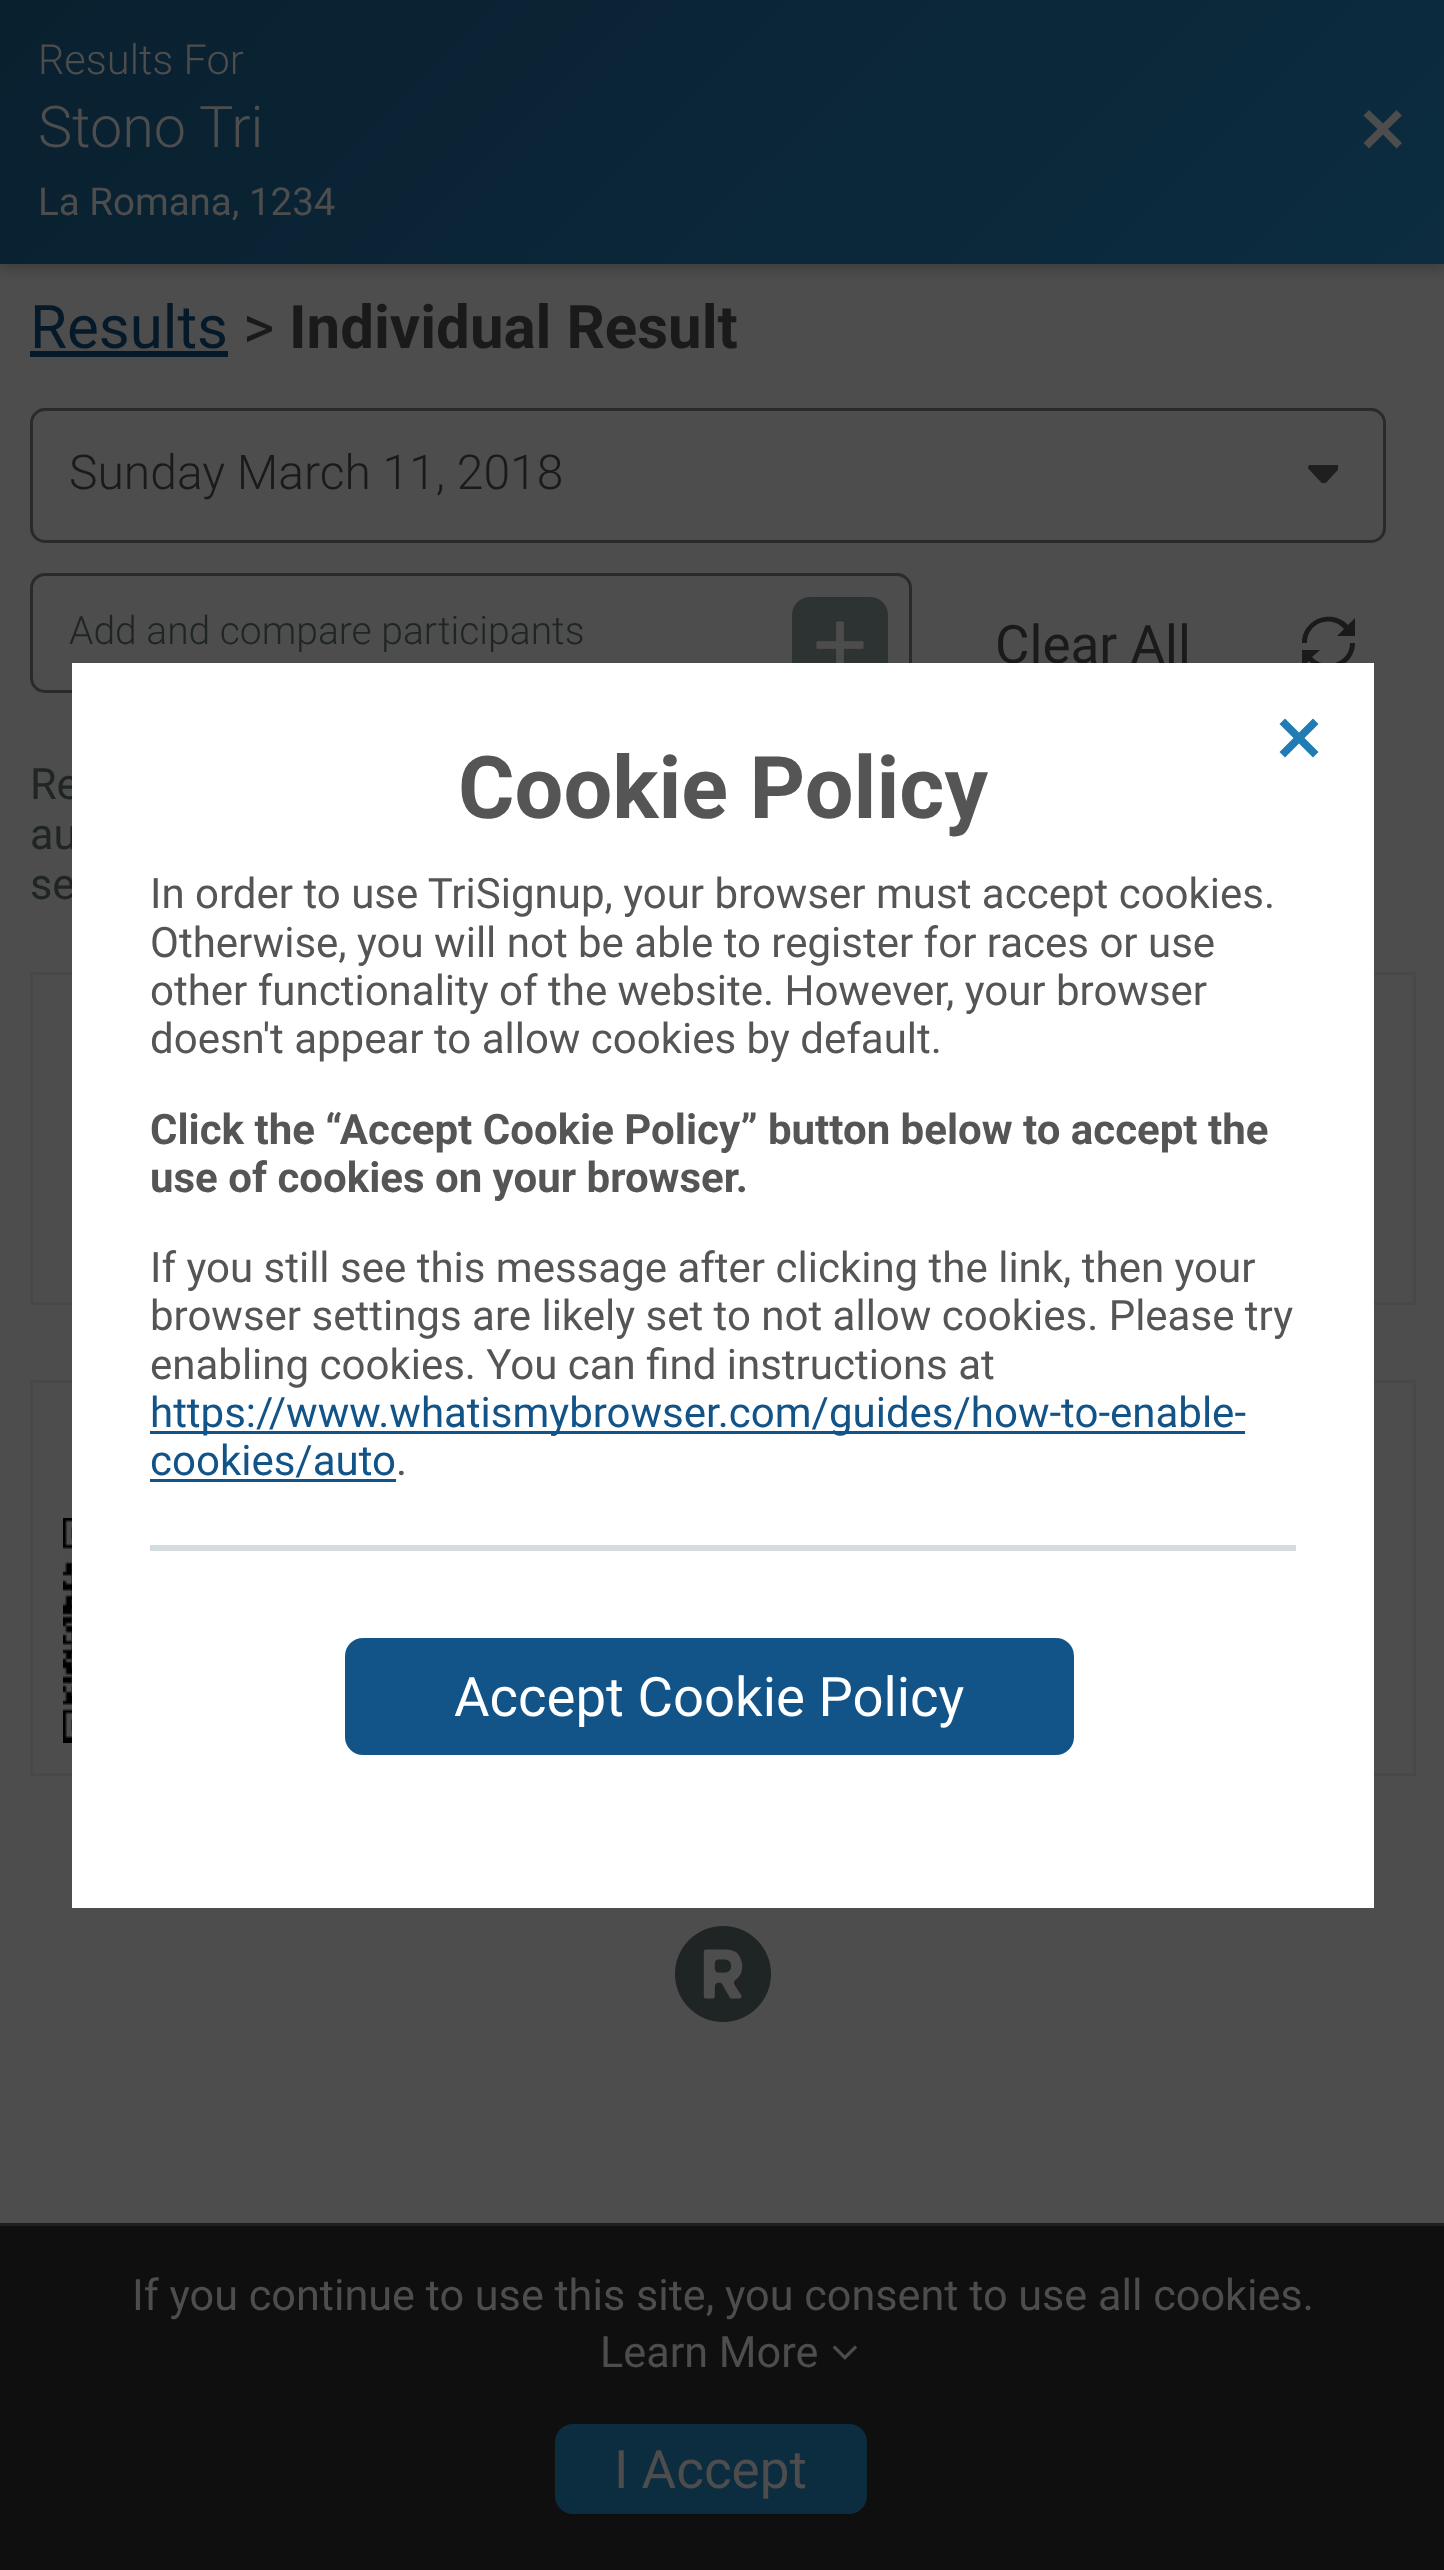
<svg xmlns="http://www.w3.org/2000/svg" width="1444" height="2570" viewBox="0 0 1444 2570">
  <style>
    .t1 { font: 300 41.5px Roboto; fill: #4d4d4d; }
    .t2 { font: 300 57.5px Roboto; fill: #4d4d4d; }
    .t3 { font: 38.5px Roboto; fill: #4d4d4d; }
    .t4 { font: 60px Roboto; fill: #051929; }
    .t5 { font: 60px Roboto; fill: #1a1a1a; }
    .t6 { font: bold 60px Roboto; fill: #1a1a1a; }
    .t7 { font: 300 48px Roboto; fill: #1a1a1a; }
    .t8 { font: 300 39px Roboto; fill: #1f2425; }
    .t9 { font: 53px Roboto; fill: #1a1a1a; }
    .t10 { font: 43.2px Roboto; fill: #1f2425; }
    .t11 { font: bold 86.5px Roboto; fill: #555; }
    .t12 { font: 42px Roboto; fill: #555; }
    .t13 { font: bold 42px Roboto; fill: #555; }
    .t14 { font: 42px Roboto; fill: #125388; }
    .t15 { font: 54.5px Roboto; fill: #fff; }
    .t16 { font: 43.2px Roboto; fill: #4d4d4d; }
    .t17 { font: 53px Roboto; fill: #4d4d4d; }
  </style>
  <defs>
    <linearGradient id="g1" gradientUnits="userSpaceOnUse" x1="1151" y1="560" x2="295" y2="-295"><stop offset="0" stop-color="#0c2c40"/><stop offset="1" stop-color="#09202f"/></linearGradient>
  </defs>
  <rect width="100%" height="100%" fill="#4d4d4d"/>
  <rect x="0" y="6" width="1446" height="264" fill="#0000002e" filter="blur(6px)"/>
  <rect x="0" y="0" width="1444" height="264" fill="url(#g1)"/>
  <text x="38" y="74" class="t1">Results For</text>
  <text x="38" y="147" class="t2">Stono Tri</text>
  <text x="38" y="215" class="t3">La Romana, 1234</text>
  <path d="M1363.5 143L1377.5 129L1363.5 115.5L1369 110L1383 123.5L1396.5 110L1402 115.5L1388 129L1402 143L1396.5 148.5L1383 134.5L1369 148.5Z" fill="#4d4d4d"/>
  <text x="30" y="348" class="t4">Results</text>
  <rect x="30" y="351" width="198" height="6" fill="#051929"/>
  <text x="243" y="348" class="t5">&gt;</text>
  <text x="289" y="348" class="t6">Individual Result</text>
  <image x="1308" y="465" width="30" height="18" href="images/1.png"/>
  <rect x="31.5" y="409.5" width="1353" height="132" rx="13.5" fill="none" stroke="#2a2a2a" stroke-width="3"/>
  <text x="69" y="489" class="t7">Sunday March 11, 2018</text>
  <rect x="31.5" y="574.5" width="879" height="117" rx="13.5" fill="none" stroke="#2a2a2a" stroke-width="3"/>
  <text x="69" y="644" class="t8">Add and compare participants</text>
  <rect x="792" y="597" width="96" height="96" rx="18" fill="#2d3232"/>
  <image x="816" y="621" width="48" height="42" href="images/2.png"/>
  <text x="995" y="663" class="t9">Clear All</text>
  <path d="M1348 625C1332 608 1302 619 1302 643H1307C1307 623 1331 614 1344 629L1337 636H1355V618ZM1350 643C1350 663 1325 671 1312 657L1320 650H1302V668L1309 661C1325 678 1355 667 1355 643Z" fill="#1a1a1a"/>
  <text x="30" y="799" class="t10">Re</text>
  <text x="30" y="849" class="t10">au</text>
  <text x="30" y="899" class="t10">se</text>
  <rect x="31.5" y="973.5" width="1383" height="330" fill="none" stroke="#484848" stroke-width="3"/>
  <rect x="31.5" y="1381.5" width="1383" height="393" fill="none" stroke="#484848" stroke-width="3"/>
  <image x="63" y="1518" width="9" height="225" href="images/3.png"/>
  <image x="675" y="1926" width="96" height="96" href="images/4.png"/>
  <rect x="73.5" y="664.5" width="1299" height="1242" fill="none" stroke="#fff" stroke-width="3"/>
  <rect x="75" y="666" width="1296" height="1239" fill="#fff"/>
  <path d="M1279.5 752L1293.5 738L1279.5 724L1285 718.5L1299 732.5L1313 718.5L1318.5 724L1304.5 738L1318.5 752L1313 757.5L1299 743.5L1285 757.5Z" fill="#227cb4"/>
  <text x="458" y="818" class="t11">Cookie Policy</text>
  <text x="150" y="908" class="t12">In order to use TriSignup, your browser must accept cookies.</text>
  <text x="150" y="957" class="t12">Otherwise, you will not be able to register for races or use</text>
  <text x="150" y="1005" class="t12">other functionality of the website. However, your browser</text>
  <text x="150" y="1053" class="t12">doesn't appear to allow cookies by default.</text>
  <text x="150" y="1144" class="t13">Click the “Accept Cookie Policy” button below to accept the</text>
  <text x="150" y="1192" class="t13">use of cookies on your browser.</text>
  <text x="150" y="1282" class="t12">If you still see this message after clicking the link, then your</text>
  <text x="150" y="1330" class="t12">browser settings are likely set to not allow cookies. Please try</text>
  <text x="150" y="1379" class="t12">enabling cookies. You can find instructions at</text>
  <rect x="150" y="1431" width="1095" height="3" fill="#125388"/>
  <text x="150" y="1427" class="t14">https://www.whatismybrowser.com/guides/how-to-enable-</text>
  <text x="150" y="1475" class="t14">cookies/auto</text>
  <rect x="150" y="1479" width="246" height="3" fill="#125388"/>
  <text x="396" y="1475" class="t12">.</text>
  <rect x="150" y="1545" width="1146" height="6" fill="#d3dbdf"/>
  <rect x="345" y="1638" width="729" height="117" rx="18" fill="#125388"/>
  <text x="454" y="1716" class="t15">Accept Cookie Policy</text>
  <rect x="0" y="2226" width="1444" height="344" fill="#0f0f0f"/>
  <rect x="0" y="2223" width="1444" height="3" fill="#1f1f1f"/>
  <text x="132" y="2310" class="t16">If you continue to use this site, you consent to use all cookies.</text>
  <text x="600" y="2367" class="t16">Learn More</text>
  <image x="832" y="2345" width="25" height="15" href="images/5.png"/>
  <rect x="555" y="2424" width="312" height="90" rx="18" fill="#0c2c40"/>
  <text x="614" y="2488" class="t17">I Accept</text>
</svg>
